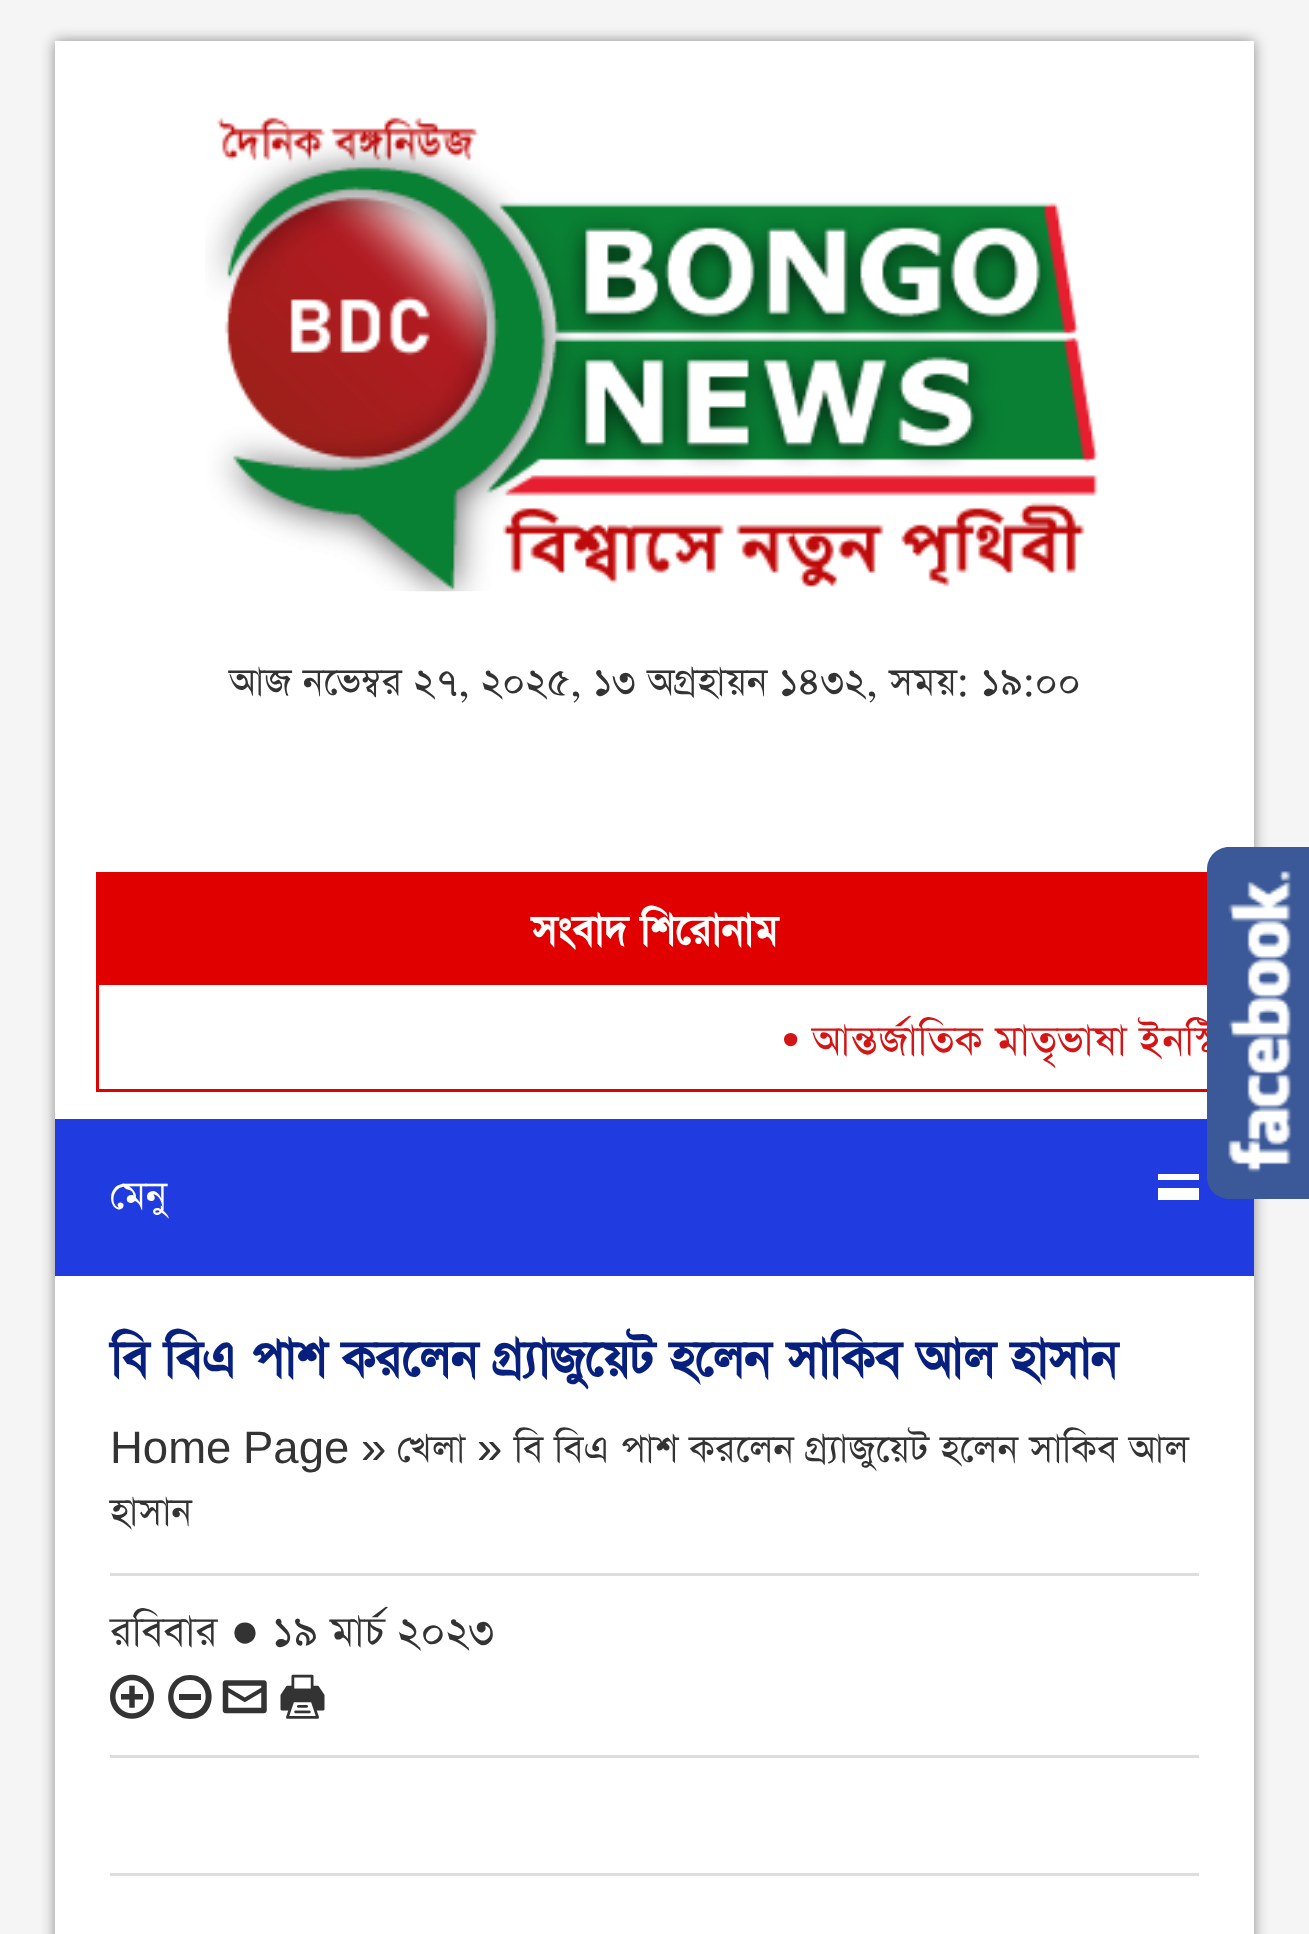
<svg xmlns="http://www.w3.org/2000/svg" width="1309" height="1934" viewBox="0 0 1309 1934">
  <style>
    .t1 { font: 45.5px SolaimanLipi; fill: #333; }
    .t2 { font: bold 49.5px SolaimanLipi; fill: #fff; }
    .t3 { font: 49.5px Liberation Sans; fill: #d41515; }
    .t4 { font: 49.5px SolaimanLipi; fill: #d41515; }
    .t5 { font: 47px SolaimanLipi; fill: #fff; }
    .t6 { font: bold 60.5px SolaimanLipi; letter-spacing: -0.9px; fill: #071f7d; }
    .t7 { font: 45.5px Liberation Sans; fill: #333; }
    .t8 { font: 49.5px SolaimanLipi; fill: #333; }
    .t9 { font: 49.5px Liberation Sans; fill: #333; }
  </style>
  <rect width="100%" height="100%" fill="#f5f5f5"/>
  <rect x="55" y="41" width="1199" height="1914" fill="#888" filter="blur(7px)"/>
  <rect x="55" y="41" width="1199" height="1893" fill="#fff"/>
  <image x="205" y="117" width="893" height="475" href="images/1.png"/>
  <text x="229" y="696" class="t1">আজ নভেম্বর ২৭, ২০২৫, ১৩ অগ্রহায়ন ১৪৩২, সময়: ১৯:০০</text>
  <rect x="97.5" y="873.5" width="1114" height="217" fill="none" stroke="#e00000" stroke-width="3"/>
  <rect x="99" y="875" width="1108" height="110" fill="#e00000"/>
  <text x="531" y="946" class="t2">সংবাদ শিরোনাম</text>
  <text x="782" y="1056" class="t3">•</text>
  <text x="812" y="1056" class="t4">আন্তর্জাতিক মাতৃভাষা ইনস্টি</text>
  <rect x="55" y="1119" width="1199" height="157" fill="#203ce0"/>
  <rect x="1158" y="1174" width="41" height="6" fill="#fff"/>
  <text x="110" y="1210" class="t5">মেনু</text>
  <rect x="1158" y="1188" width="41" height="12" fill="#fff"/>
  <text x="110" y="1378" word-spacing="1.75" class="t6">বি বিএ পাশ করলেন গ্র্যাজুয়েট হলেন সাকিব আল হাসান</text>
  <text x="110" y="1463" word-spacing="-1" class="t7">Home Page</text>
  <text x="361" y="1463" class="t7">»</text>
  <text x="397" y="1463" class="t1">খেলা</text>
  <text x="477" y="1463" class="t7">»</text>
  <text x="514" y="1463" class="t1">বি বিএ পাশ করলেন গ্র্যাজুয়েট হলেন সাকিব আল</text>
  <text x="110" y="1526" class="t1">হাসান</text>
  <rect x="110" y="1573" width="1089" height="3" fill="#ddd"/>
  <text x="110" y="1647" class="t8">রবিবার</text>
  <text x="230" y="1647" class="t9">●</text>
  <text x="272" y="1647" class="t8">১৯ মার্চ ২০২৩</text>
  <image x="110" y="1674" width="44" height="45" href="images/2.png"/>
  <path d="M190 1675C161 1675 161 1719 190 1719C219 1719 219 1675 190 1675ZM190 1713C168 1713 168 1680 190 1680C211 1680 211 1713 190 1713ZM179 1700H201V1694H179Z" fill="#333"/>
  <image x="222" y="1680" width="45" height="34" href="images/3.png"/>
  <image x="280" y="1674" width="45" height="45" href="images/4.png"/>
  <rect x="110" y="1755" width="1089" height="3" fill="#ddd"/>
  <rect x="110" y="1873" width="1089" height="3" fill="#ddd"/>
  <path d="M1229 847H1309V1199H1229C1217 1199 1207 1189 1207 1177V869C1207 857 1217 847 1229 847Z" fill="#3b5998"/>
  <image x="1228" y="871" width="64" height="302" href="images/5.png"/>
</svg>
